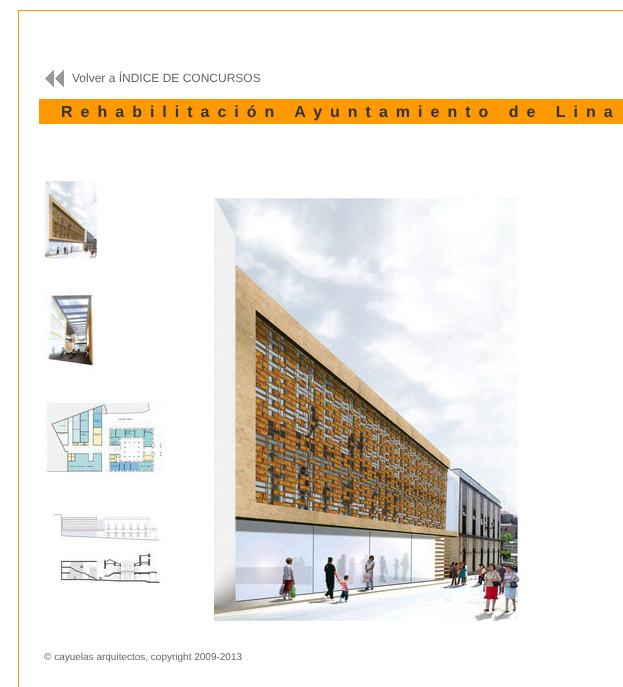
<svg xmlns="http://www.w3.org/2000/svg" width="623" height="687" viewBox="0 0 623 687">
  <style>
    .t1 { font: 12px Liberation Sans; fill: #666; }
    .t2 { font: bold 16px Liberation Sans; letter-spacing: 8px; fill: #333; }
    .t3 { font: 10px Liberation Sans; fill: #666; }
  </style>
  <rect width="100%" height="100%" fill="#fff"/>
  <rect x="18.5" y="10.5" width="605" height="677" fill="none" stroke="#f90"/>
  <image x="45" y="70" width="19" height="17" href="images/1.png"/>
  <text x="72" y="82" class="t1">Volver a ÍNDICE DE CONCURSOS</text>
  <rect x="39" y="99" width="584" height="25" fill="#f90"/>
  <text x="61" y="117" class="t2">Rehabilitación Ayuntamiento de Lina</text>
  <image x="45" y="180" width="52" height="80" href="images/2.png"/>
  <image x="45" y="290" width="52" height="80" href="images/3.png"/>
  <image x="45" y="400" width="120" height="75" href="images/4.png"/>
  <image x="53" y="511" width="112" height="72" href="images/5.png"/>
  <image x="214" y="197" width="311" height="424" href="images/6.png"/>
  <text x="44" y="660" class="t3">© cayuelas arquitectos, copyright 2009-2013</text>
</svg>
